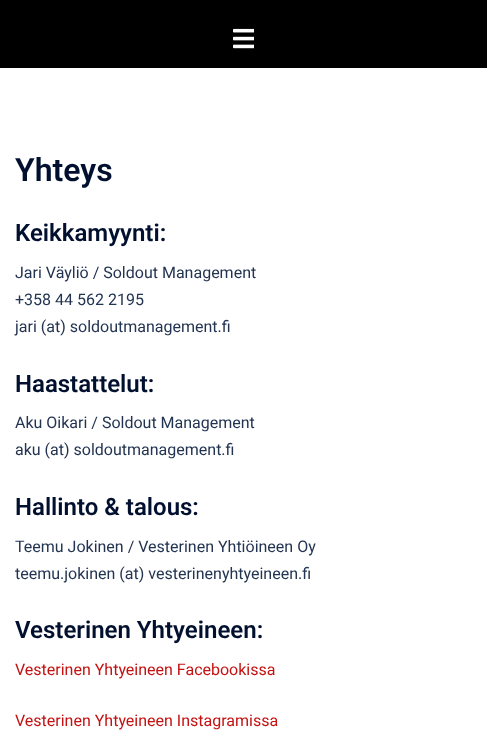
<svg xmlns="http://www.w3.org/2000/svg" width="487" height="730" viewBox="0 0 487 730">
  <style>
    .t1 { font: 600 32px Roboto; fill: #00102e; }
    .t2 { font: 600 24px Roboto; fill: #00102e; }
    .t3 { font: 16px Roboto; fill: #233452; }
    .t4 { font: 16px Roboto; fill: #c41111; }
  </style>
  <rect width="100%" height="100%" fill="#fff"/>
  <rect x="0" y="0" width="487" height="68" fill="#000"/>
  <image x="233" y="28" width="21" height="21" href="images/1.png"/>
  <text x="15" y="181" class="t1">Yhteys</text>
  <text x="15" y="241" class="t2">Keikkamyynti:</text>
  <text x="15" y="278" class="t3">Jari Väyliö / Soldout Management</text>
  <text x="15" y="305" class="t3">+358 44 562 2195</text>
  <text x="15" y="332" class="t3">jari (at) soldoutmanagement.fi</text>
  <text x="15" y="392" class="t2">Haastattelut:</text>
  <text x="15" y="428" class="t3">Aku Oikari / Soldout Management</text>
  <text x="15" y="455" class="t3">aku (at) soldoutmanagement.fi</text>
  <text x="15" y="515" class="t2">Hallinto &amp; talous:</text>
  <text x="15" y="552" class="t3">Teemu Jokinen / Vesterinen Yhtiöineen Oy</text>
  <text x="15" y="579" class="t3">teemu.jokinen (at) vesterinenyhtyeineen.fi</text>
  <text x="15" y="638" class="t2">Vesterinen Yhtyeineen:</text>
  <text x="15" y="675" class="t4">Vesterinen Yhtyeineen Facebookissa</text>
  <text x="15" y="726" class="t4">Vesterinen Yhtyeineen Instagramissa</text>
</svg>
